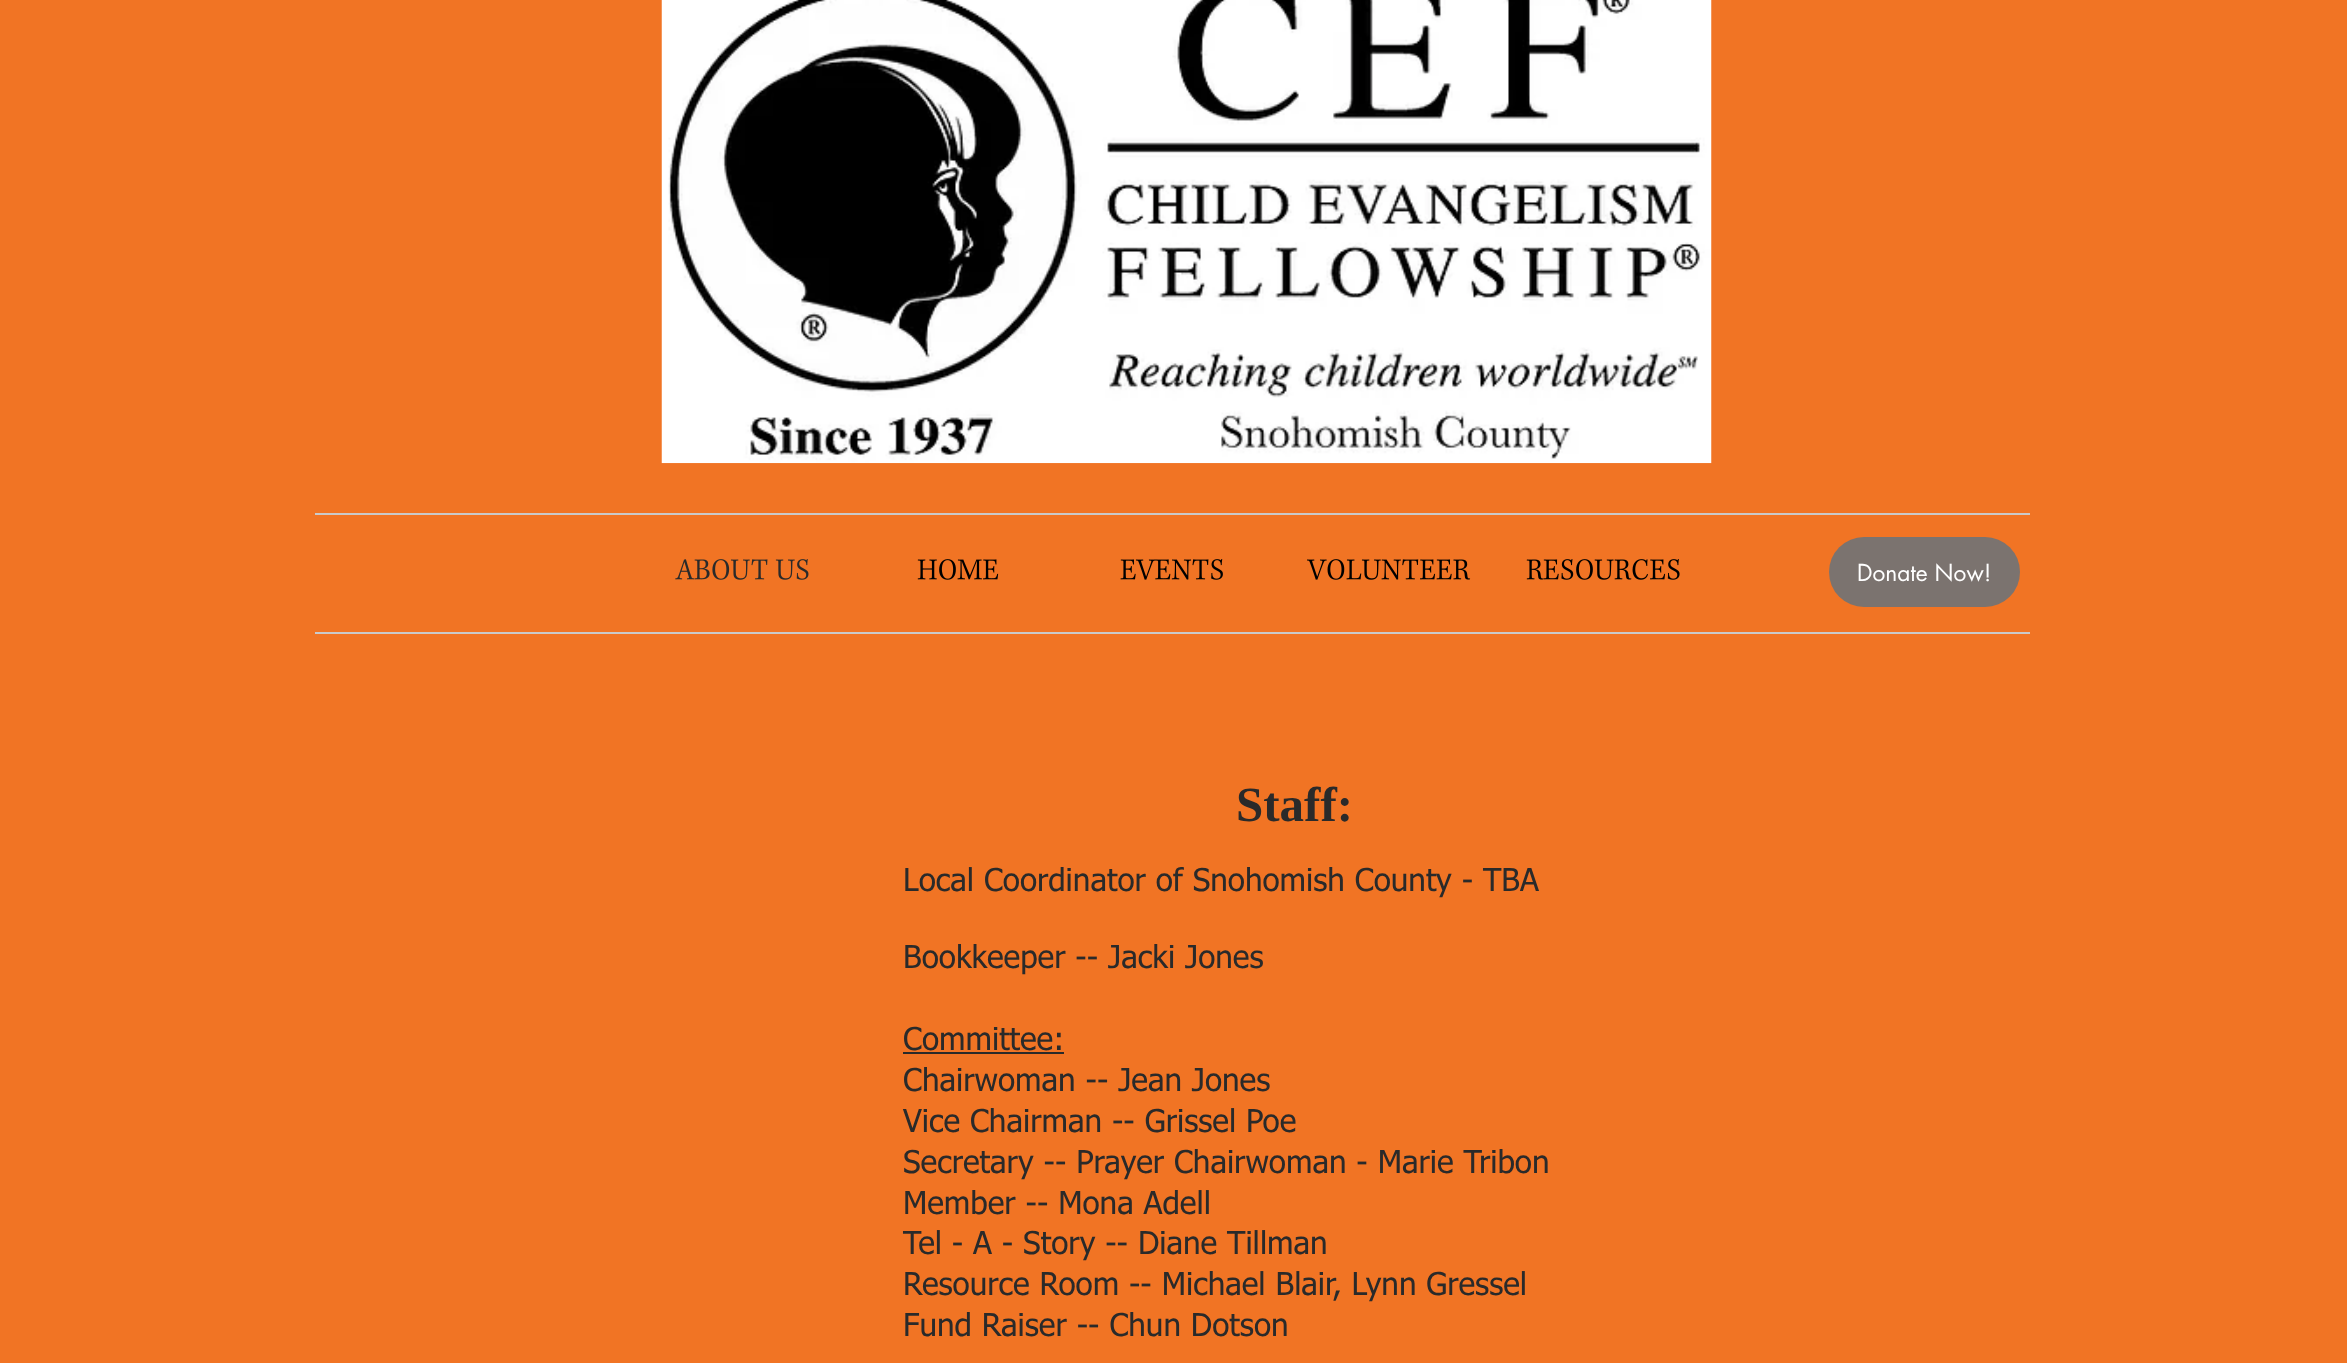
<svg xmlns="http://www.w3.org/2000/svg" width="2347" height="1363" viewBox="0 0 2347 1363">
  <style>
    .t1 { font: 22.75px futura; fill: #fff; }
    .t2 { font: bold 49px Liberation Serif; fill: #2a2a2a; }
    .t3 { font: 31.5px tahoma; fill: #2a2a2a; }
  </style>
  <rect width="100%" height="100%" fill="#f17424"/>
  <image x="661" y="0" width="1051" height="464" href="images/1.png"/>
  <rect x="315" y="513" width="1715" height="2" fill="#cacaca"/>
  <rect x="315" y="632" width="1715" height="2" fill="#cacaca"/>
  <image x="675" y="559" width="134" height="21" href="images/2.png"/>
  <image x="917" y="559" width="82" height="21" href="images/3.png"/>
  <image x="1120" y="559" width="103" height="21" href="images/4.png"/>
  <image x="1307" y="559" width="164" height="21" href="images/5.png"/>
  <image x="1526" y="559" width="154" height="21" href="images/6.png"/>
  <rect x="1829" y="537" width="191" height="70" rx="35" fill="#7b736f"/>
  <text x="1857" y="581" class="t1">Donate Now!</text>
  <text x="1236" y="821" class="t2">Staff:</text>
  <text x="903" y="891" class="t3">Local Coordinator of Snohomish County - TBA</text>
  <text x="903" y="968" class="t3">Bookkeeper -- Jacki Jones</text>
  <text x="903" y="1050" class="t3">Committee:</text>
  <rect x="903" y="1052" width="161" height="2" fill="#2a2a2a"/>
  <text x="903" y="1091" class="t3">Chairwoman -- Jean Jones</text>
  <text x="903" y="1132" class="t3">Vice Chairman -- Grissel Poe</text>
  <text x="903" y="1173" class="t3">Secretary -- Prayer Chairwoman - Marie Tribon</text>
  <text x="903" y="1214" class="t3">Member -- Mona Adell</text>
  <text x="903" y="1254" class="t3">Tel - A - Story -- Diane Tillman</text>
  <text x="903" y="1295" class="t3">Resource Room -- Michael Blair, Lynn Gressel</text>
  <text x="903" y="1336" class="t3">Fund Raiser -- Chun Dotson</text>
</svg>
